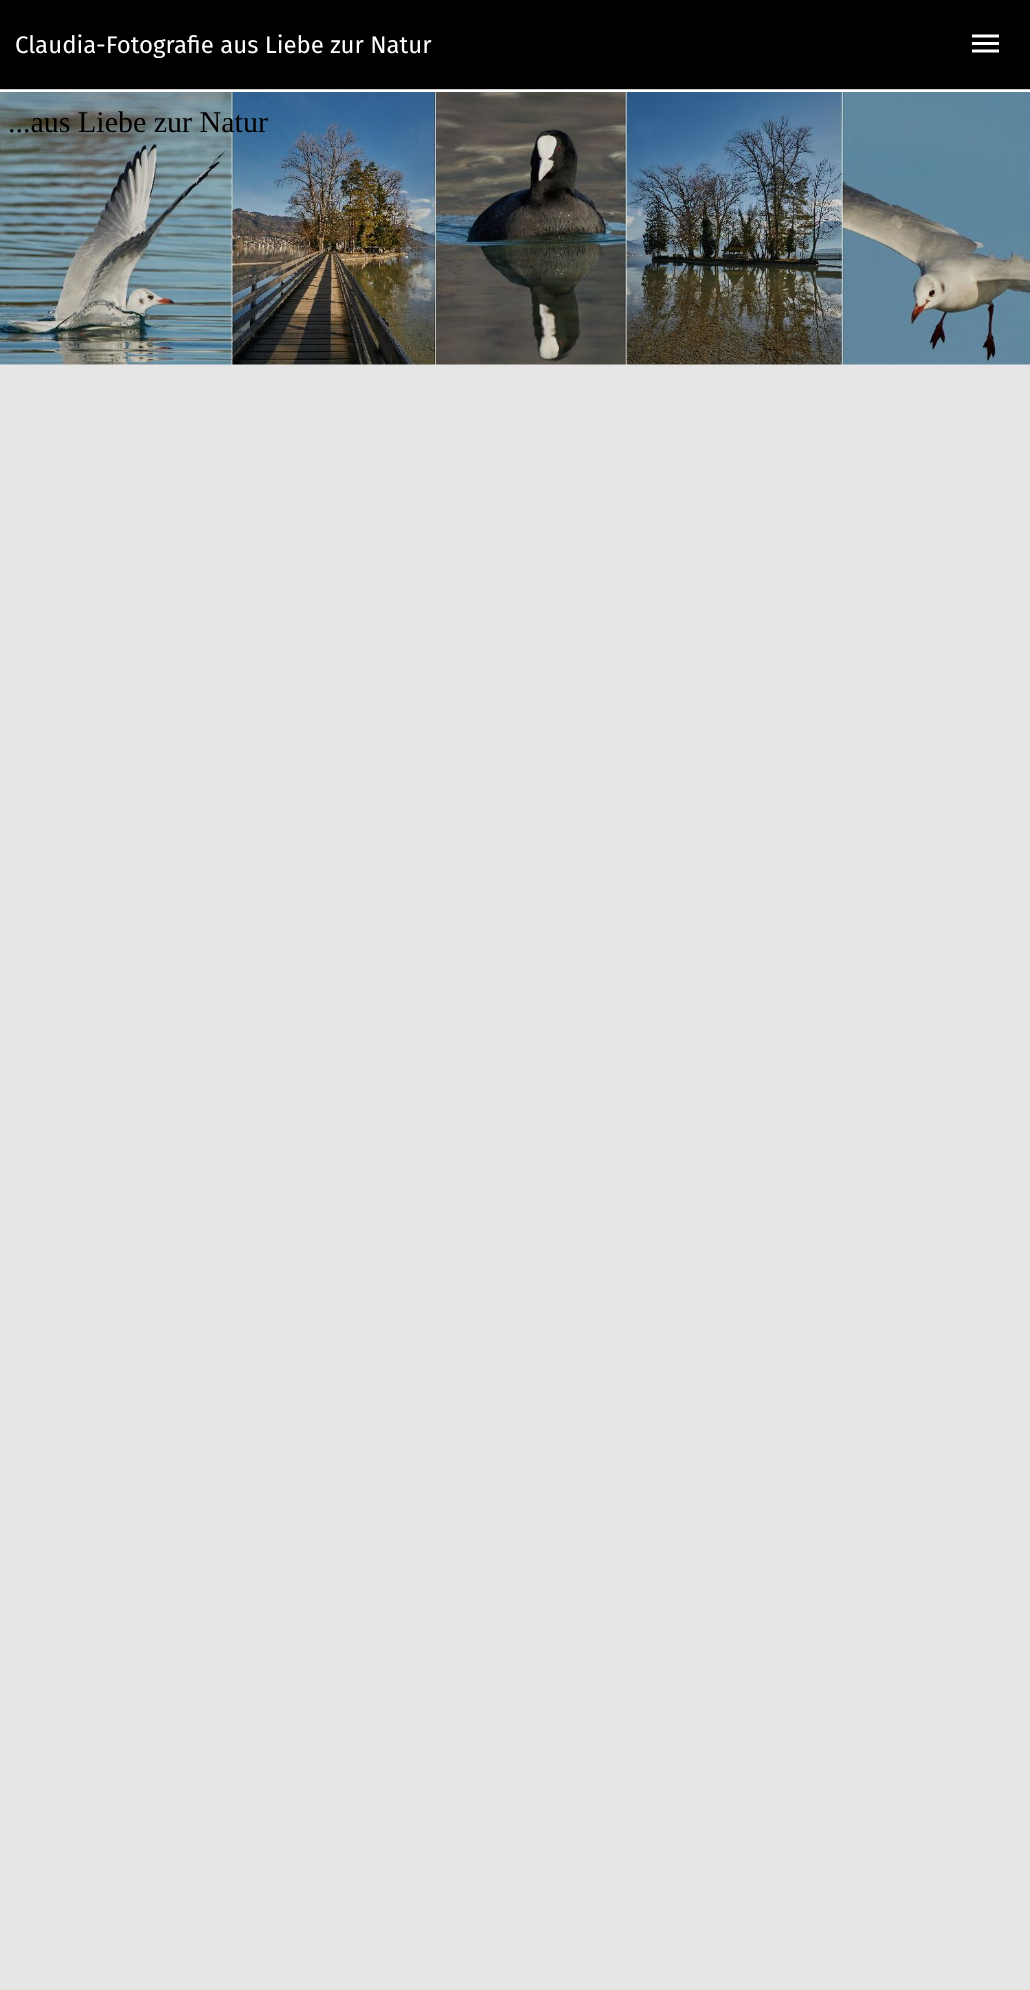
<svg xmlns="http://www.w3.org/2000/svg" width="1030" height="1990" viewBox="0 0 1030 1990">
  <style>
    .t1 { font: 24px Fira Sans; fill: #fff; }
    .t2 { font: 30px Liberation Serif; fill: #000; }
  </style>
  <rect width="100%" height="100%" fill="#e6e6e6"/>
  <rect x="0" y="0" width="1030" height="89" fill="#000"/>
  <rect x="0" y="89" width="1030" height="1" fill="#ccc"/>
  <rect x="0" y="90" width="1030" height="2" fill="#fff"/>
  <text x="15" y="53" class="t1">Claudia-Fotografie aus Liebe zur Natur</text>
  <image x="972" y="34" width="27" height="19" href="images/1.png"/>
  <image x="0" y="92" width="1030" height="273" href="images/2.png"/>
  <text x="8" y="132" class="t2">...aus Liebe zur Natur</text>
</svg>
